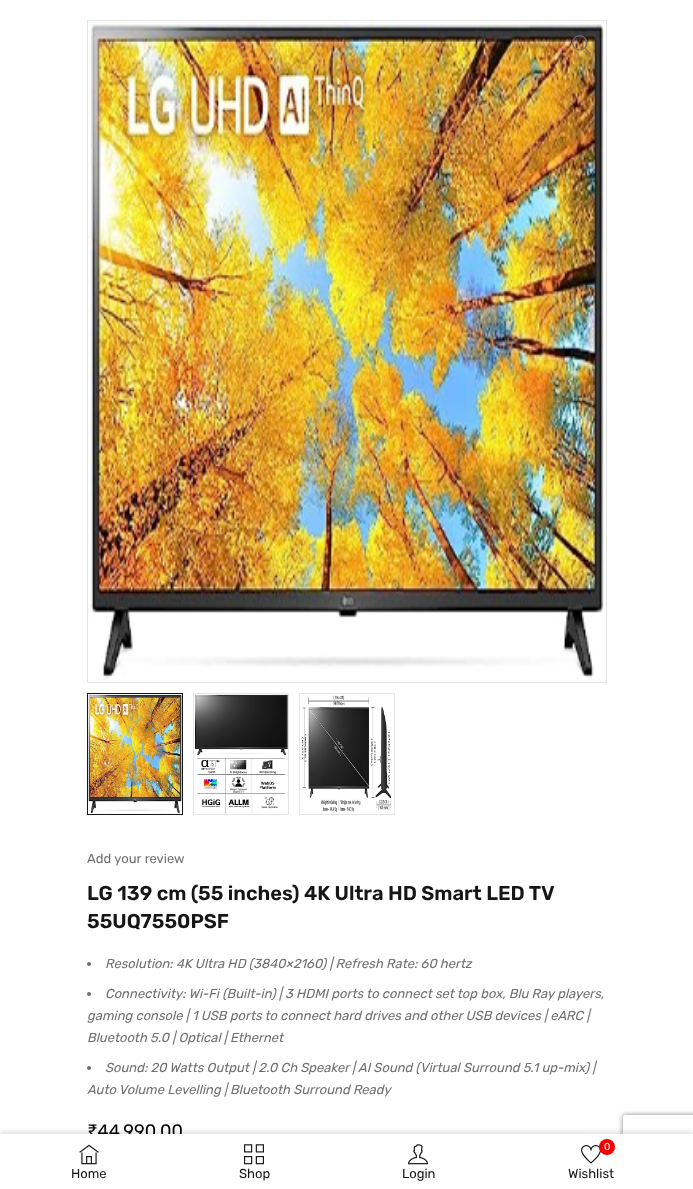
<svg xmlns="http://www.w3.org/2000/svg" width="693" height="1189" viewBox="0 0 693 1189">
  <style>
    .t1 { font: 13px Rubik; fill: #707070; }
    .t2 { font: 600 20px Rubik; fill: #161616; }
    .t3 { font: italic 13px Rubik; fill: #707070; }
    .t4 { font: 18px Rubik; fill: #000; }
    .t5 { font: 13px Rubik; fill: #161616; }
    .t6 { font: 10px Rubik; fill: #fff; }
  </style>
  <defs>
    <clipPath id="clip1"><path d="M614 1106H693V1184H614ZM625 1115H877C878 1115 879 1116 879 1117V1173C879 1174 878 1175 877 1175H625C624 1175 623 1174 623 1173V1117C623 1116 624 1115 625 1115Z" clip-rule="evenodd"/></clipPath>
  </defs>
  <rect width="100%" height="100%" fill="#fff"/>
  <rect x="87.5" y="20.5" width="519" height="662" fill="none" stroke="#e5e5e5"/>
  <image x="88" y="21" width="517" height="659" href="images/1.png"/>
  <image x="572" y="35" width="20" height="20" href="images/2.png"/>
  <rect x="87.5" y="693.5" width="95" height="121" fill="none" stroke="#161616"/>
  <image x="88" y="694" width="94" height="120" href="images/3.png"/>
  <rect x="193.5" y="693.5" width="95" height="121" fill="none" stroke="#e5e5e5"/>
  <image x="195" y="694" width="93" height="120" href="images/4.png"/>
  <rect x="299.5" y="693.5" width="95" height="121" fill="none" stroke="#e5e5e5"/>
  <image x="301" y="695" width="90" height="118" href="images/5.png"/>
  <text x="87" y="863" class="t1">Add your review</text>
  <text x="87" y="900" class="t2">LG 139 cm (55 inches) 4K Ultra HD Smart LED TV</text>
  <text x="87" y="928" class="t2">55UQ7550PSF</text>
  <circle cx="89" cy="964" r="2" fill="#707070"/>
  <text x="105" y="968" class="t3">Resolution: 4K Ultra HD (3840×2160) | Refresh Rate: 60 hertz</text>
  <circle cx="89" cy="994" r="2" fill="#707070"/>
  <text x="105" y="998" class="t3">Connectivity: Wi-Fi (Built-in) | 3 HDMI ports to connect set top box, Blu Ray players,</text>
  <text x="87" y="1020" class="t3">gaming console | 1 USB ports to connect hard drives and other USB devices | eARC |</text>
  <text x="87" y="1042" class="t3">Bluetooth 5.0 | Optical | Ethernet</text>
  <circle cx="89" cy="1068" r="2" fill="#707070"/>
  <text x="105" y="1072" class="t3">Sound: 20 Watts Output | 2.0 Ch Speaker | AI Sound (Virtual Surround 5.1 up-mix) |</text>
  <text x="87" y="1094" class="t3">Auto Volume Levelling | Bluetooth Surround Ready</text>
  <text x="87" y="1137" class="t4">₹44,990.00</text>
  <g clip-path="url(#clip1)">
    <rect x="623" y="1115" width="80" height="60" rx="2" fill="#808080" filter="blur(2.5px)"/>
  </g>
  <rect x="0" y="1131" width="693" height="55" fill="#0000001a" filter="blur(2px)"/>
  <rect x="0" y="1134" width="693" height="55" fill="#fff"/>
  <image x="79" y="1144" width="20" height="21" href="images/6.png"/>
  <text x="71" y="1178" class="t5">Home</text>
  <image x="244" y="1144" width="20" height="21" href="images/7.png"/>
  <text x="239" y="1178" class="t5">Shop</text>
  <image x="408" y="1144" width="20" height="21" href="images/8.png"/>
  <text x="402" y="1178" class="t5">Login</text>
  <image x="581" y="1145" width="20" height="19" href="images/9.png"/>
  <circle cx="607" cy="1147" r="8" fill="#f50000"/>
  <text x="604" y="1150" class="t6">0</text>
  <text x="568" y="1178" class="t5">Wishlist</text>
</svg>
